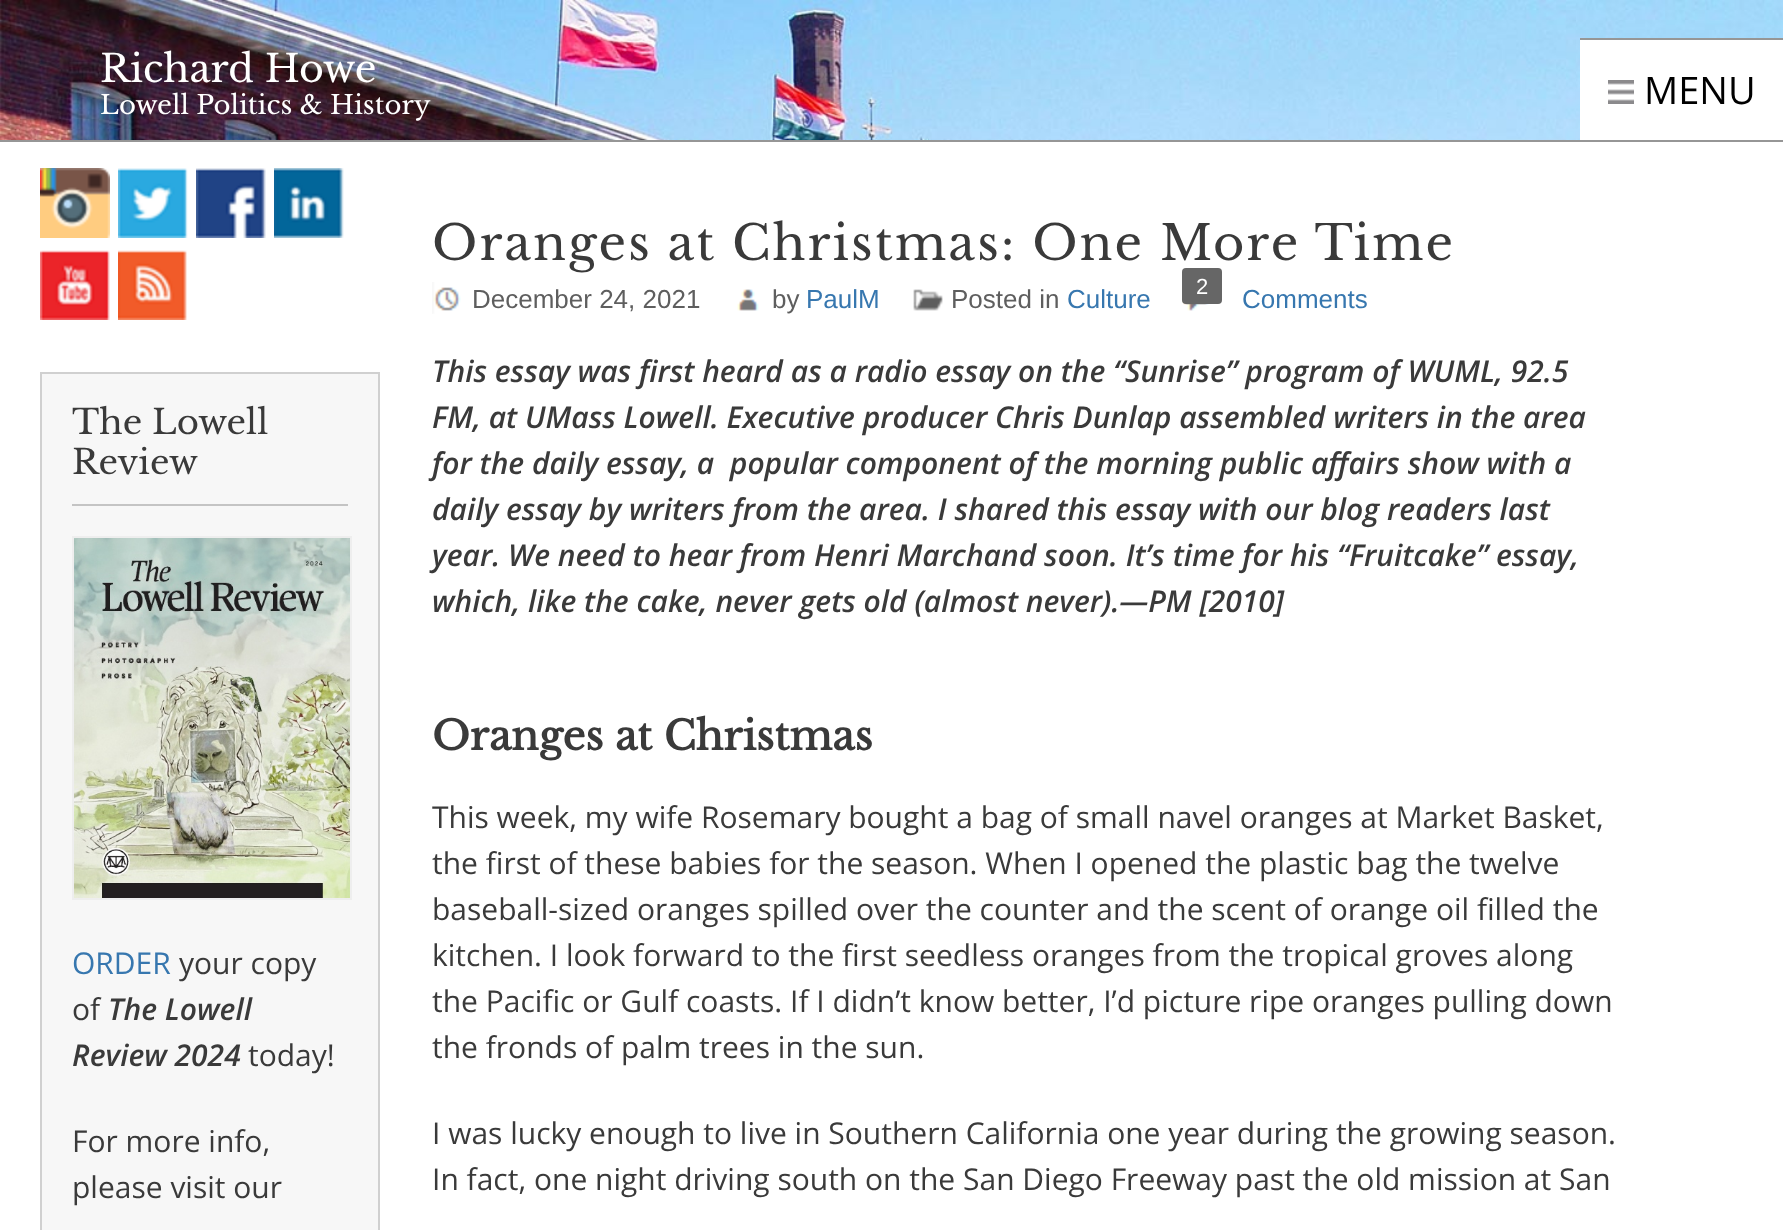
<svg xmlns="http://www.w3.org/2000/svg" width="1783" height="1230" viewBox="0 0 1783 1230">
  <style>
    .t1 { font: 38px Libre Baskerville; fill: #fff; }
    .t2 { font: 26px Libre Baskerville; fill: #fff; }
    .t3 { font: 38px Open Sans; fill: #000; }
    .t4 { font: 34px Libre Baskerville; fill: #3a3a3a; }
    .t5 { font: 30px Open Sans; fill: #3777af; }
    .t6 { font: 30px Open Sans; fill: #3a3a3a; }
    .t7 { font: italic 600 30px Open Sans; fill: #3a3a3a; }
    .t8 { font: 48px Libre Baskerville; letter-spacing: 2px; fill: #3a3a3a; }
    .t9 { font: 26px Liberation Sans; fill: #5e5e5e; }
    .t10 { font: 26px Liberation Sans; fill: #3777af; }
    .t11 { font: 22px Liberation Sans; fill: #fff; }
    .t12 { font: bold 40px Libre Baskerville; fill: #3a3a3a; }
  </style>
  <rect width="100%" height="100%" fill="#fff"/>
  <image x="0" y="0" width="1783" height="140" href="images/1.png"/>
  <text x="100" y="82" class="t1">Richard Howe</text>
  <text x="100" y="114" class="t2">Lowell Politics &amp; History</text>
  <rect x="1580" y="40" width="203" height="100" fill="#fff"/>
  <rect x="1580" y="38" width="203" height="2" fill="#969696"/>
  <image x="1608" y="80" width="26" height="24" href="images/2.png"/>
  <text x="1644" y="104" class="t3">MENU</text>
  <rect x="0" y="140" width="1783" height="2" fill="#969696"/>
  <image x="40" y="168" width="70" height="70" href="images/3.png"/>
  <image x="118" y="168" width="70" height="70" href="images/4.png"/>
  <image x="196" y="168" width="70" height="70" href="images/5.png"/>
  <image x="274" y="168" width="70" height="70" href="images/6.png"/>
  <image x="40" y="250" width="70" height="70" href="images/7.png"/>
  <image x="118" y="250" width="69" height="70" href="images/8.png"/>
  <rect x="41" y="373" width="338" height="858" fill="#f7f7f7" stroke="#d0d0d0" stroke-width="2"/>
  <rect x="72" y="504" width="276" height="2" fill="#c4c4c4"/>
  <text x="72" y="434" class="t4">The Lowell</text>
  <text x="72" y="474" class="t4">Review</text>
  <rect x="73" y="537" width="278" height="362" fill="none" stroke="#eee" stroke-width="2"/>
  <image x="74" y="538" width="276" height="360" href="images/9.png"/>
  <text x="72" y="974" class="t5">ORDER</text>
  <text x="179" y="974" class="t6">your copy</text>
  <text x="72" y="1020" class="t6">of</text>
  <text x="108" y="1020" class="t7">The Lowell</text>
  <text x="72" y="1066" class="t7">Review 2024</text>
  <text x="248" y="1066" class="t6">today!</text>
  <text x="72" y="1152" class="t6">For more info,</text>
  <text x="72" y="1198" class="t6">please visit our</text>
  <text x="432" y="260" class="t8">Oranges at Christmas: One More Time</text>
  <image x="432" y="282" width="29" height="32" href="images/10.png"/>
  <text x="472" y="308" class="t9">December 24, 2021</text>
  <image x="737" y="289" width="22" height="22" href="images/11.png"/>
  <text x="772" y="308" class="t9">by</text>
  <text x="806" y="308" class="t10">PaulM</text>
  <image x="913" y="289" width="30" height="22" href="images/12.png"/>
  <text x="951" y="308" class="t9">Posted in</text>
  <text x="1067" y="308" class="t10">Culture</text>
  <image x="1182" y="300" width="29" height="11" href="images/13.png"/>
  <rect x="1182" y="268" width="40" height="36" rx="4" fill="#666"/>
  <text x="1196" y="294" class="t11">2</text>
  <text x="1242" y="308" class="t10">Comments</text>
  <text x="432" y="382" class="t7">This essay was first heard as a radio essay on the “Sunrise” program of WUML, 92.5</text>
  <text x="432" y="428" class="t7">FM, at UMass Lowell. Executive producer Chris Dunlap assembled writers in the area</text>
  <text x="432" y="474" class="t7" xml:space="preserve">for the daily essay, a  popular component of the morning public affairs show with a</text>
  <text x="432" y="520" class="t7">daily essay by writers from the area. I shared this essay with our blog readers last</text>
  <text x="432" y="566" class="t7">year. We need to hear from Henri Marchand soon. It’s time for his “Fruitcake” essay,</text>
  <text x="432" y="612" class="t7">which, like the cake, never gets old (almost never).—PM [2010]</text>
  <text x="432" y="750" class="t12">Oranges at Christmas</text>
  <text x="432" y="828" class="t6">This week, my wife Rosemary bought a bag of small navel oranges at Market Basket,</text>
  <text x="432" y="874" class="t6">the first of these babies for the season. When I opened the plastic bag the twelve</text>
  <text x="432" y="920" class="t6">baseball-sized oranges spilled over the counter and the scent of orange oil filled the</text>
  <text x="432" y="966" class="t6">kitchen. I look forward to the first seedless oranges from the tropical groves along</text>
  <text x="432" y="1012" class="t6">the Pacific or Gulf coasts. If I didn’t know better, I’d picture ripe oranges pulling down</text>
  <text x="432" y="1058" class="t6">the fronds of palm trees in the sun.</text>
  <text x="432" y="1144" class="t6">I was lucky enough to live in Southern California one year during the growing season.</text>
  <text x="432" y="1190" class="t6">In fact, one night driving south on the San Diego Freeway past the old mission at San</text>
</svg>
